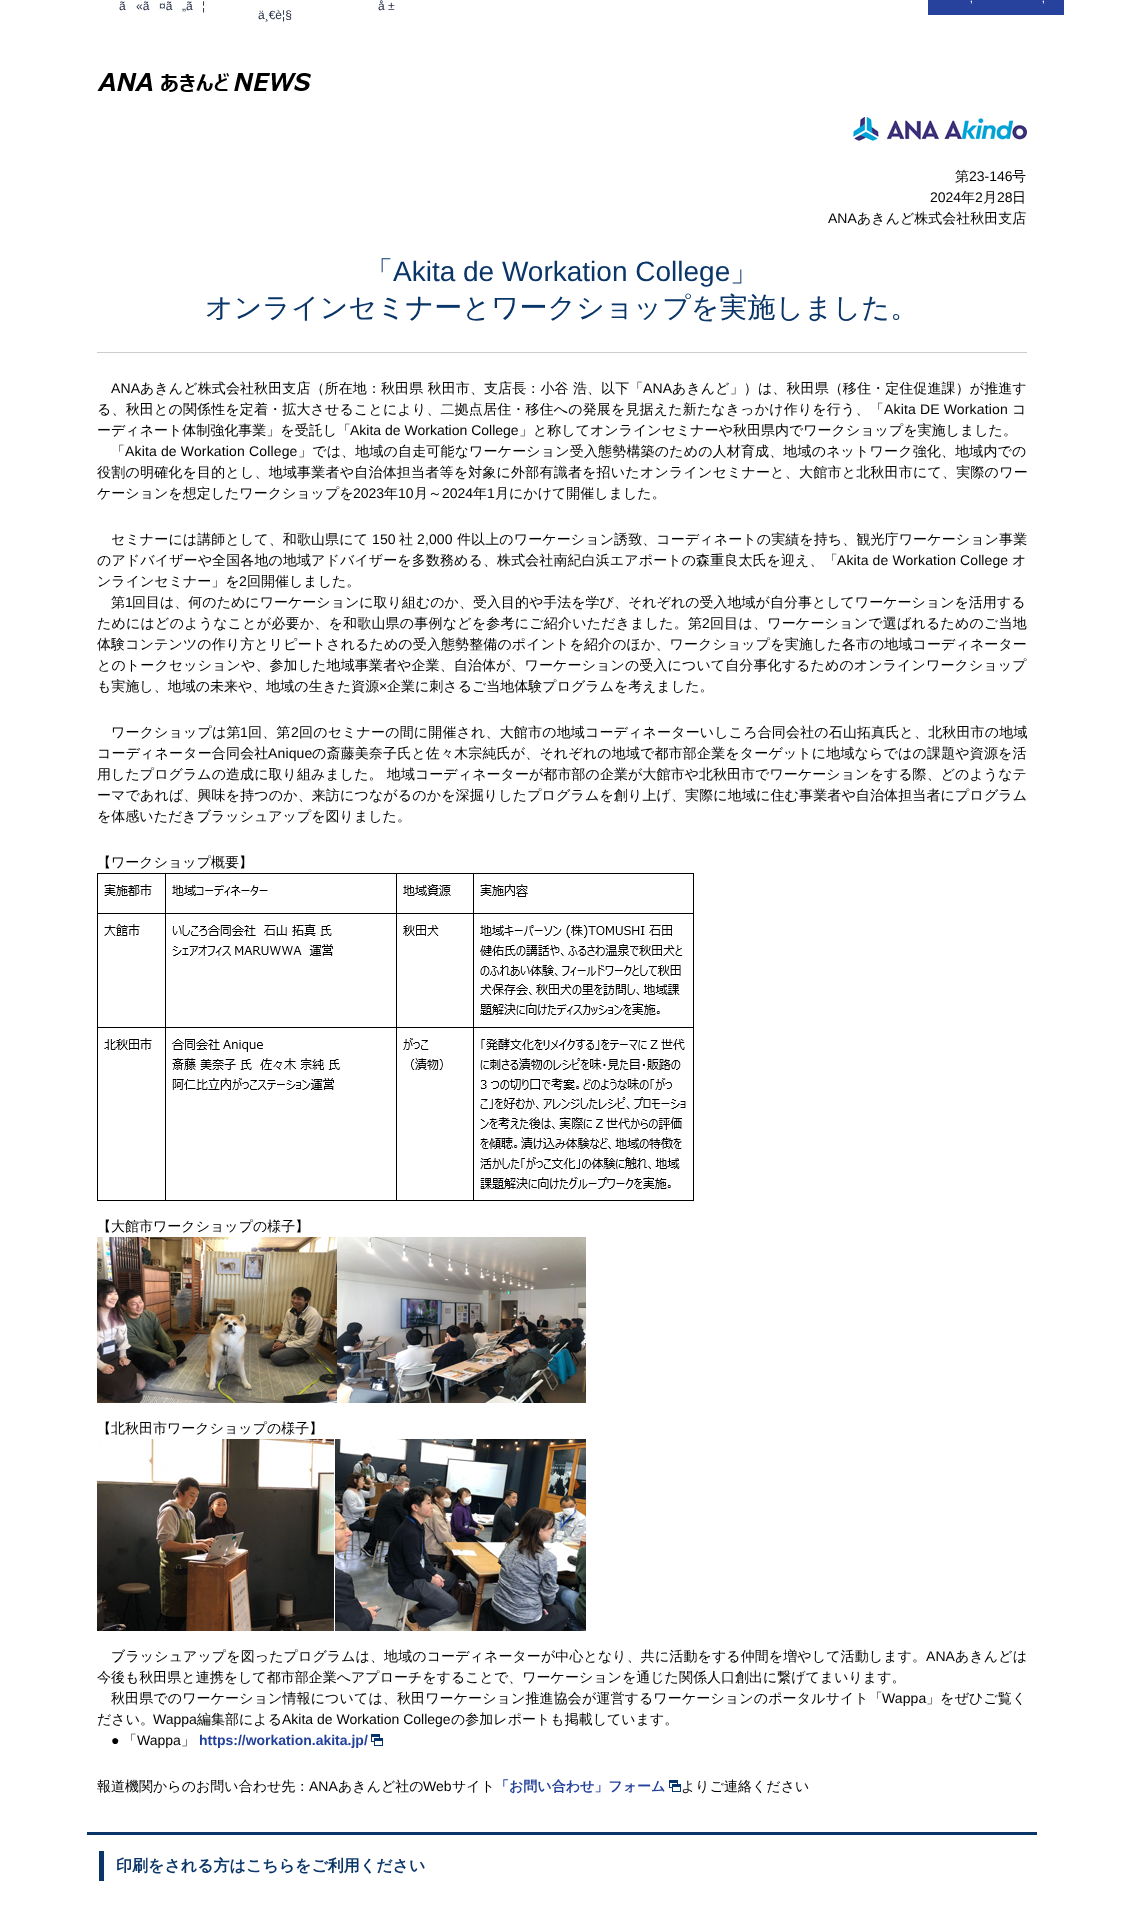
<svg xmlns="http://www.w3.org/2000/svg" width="1123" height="1907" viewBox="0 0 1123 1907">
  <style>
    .t1 { font: 12px Liberation Sans; fill: #263045; }
    .t2 { font: 12px Liberation Sans; fill: #fff; }
    .t3 { font: 500 14px WenQuanYi Zen Hei; fill: #000; }
    .t4 { font: 14px Liberation Sans; fill: #000; }
    .t5 { font: 500 28px WenQuanYi Zen Hei; fill: #093568; }
    .t6 { font: 28px Liberation Sans; fill: #093568; }
    .t7 { font: 14px Liberation Sans; letter-spacing: 0.1px; fill: #000; }
    .t8 { font: 500 14px WenQuanYi Zen Hei; letter-spacing: 0.1px; fill: #000; }
    .t9 { font: 500 14px WenQuanYi Zen Hei; letter-spacing: 0.15px; fill: #000; }
    .t10 { font: 14px Liberation Sans; letter-spacing: 0.15px; fill: #000; }
    .t11 { font: 500 14px WenQuanYi Zen Hei; letter-spacing: 0.2px; fill: #000; }
    .t12 { font: 14px Liberation Sans; letter-spacing: 0.2px; fill: #000; }
    .t13 { font: 500 14px WenQuanYi Zen Hei; letter-spacing: 0.05px; fill: #000; }
    .t14 { font: 500 14px WenQuanYi Zen Hei; letter-spacing: 0.12px; fill: #000; }
    .t15 { font: 500 14px WenQuanYi Zen Hei; letter-spacing: 0.08px; fill: #000; }
    .t16 { font: 14px Liberation Sans; letter-spacing: 0.08px; fill: #000; }
    .t17 { font: bold 14px Liberation Sans; fill: #223f9a; }
    .t18 { font: bold 14px WenQuanYi Zen Hei; fill: #223f9a; }
    .t19 { font: bold 16px WenQuanYi Zen Hei; fill: #093568; }
  </style>
  <rect width="100%" height="100%" fill="#fff"/>
  <text x="119" y="10" class="t1">ã</text>
  <text x="136" y="10" class="t1">«ã</text>
  <text x="159" y="10" class="t1">¤ã</text>
  <text x="182" y="10" class="t1">„ã</text>
  <text x="202" y="10" class="t1">¦</text>
  <text x="378" y="10" class="t1">å ±</text>
  <rect x="928" y="0" width="136" height="15" fill="#26429c"/>
  <text x="970" y="2" class="t2">‚</text>
  <text x="1042" y="2" class="t2">‚</text>
  <text x="258" y="19" class="t1">ä¸€è¦§</text>
  <image x="97" y="73" width="214" height="19" href="images/1.png"/>
  <image x="853" y="117" width="174" height="24" href="images/2.png"/>
  <text x="955" y="181" class="t3">第</text>
  <text x="969" y="181" class="t4">23-146</text>
  <text x="1012" y="181" class="t3">号</text>
  <text x="930" y="202" class="t4">2024</text>
  <text x="961" y="202" class="t3">年</text>
  <text x="975" y="202" class="t4">2</text>
  <text x="983" y="202" class="t3">月</text>
  <text x="997" y="202" class="t4">28</text>
  <text x="1012" y="202" class="t3">日</text>
  <text x="828" y="223" class="t4">ANA</text>
  <text x="857" y="223" class="t3">あきんど株式会社秋田支店</text>
  <text x="365" y="281" class="t5">「</text>
  <text x="393" y="281" class="t6">Akita de Workation College</text>
  <text x="730" y="281" class="t5">」</text>
  <text x="205" y="317" class="t5">オンラインセミナーとワークショップを実施しました。</text>
  <rect x="97" y="352" width="930" height="1" fill="#ccc"/>
  <text x="111" y="393" class="t7">ANA</text>
  <text x="140" y="393" class="t8">あきんど株式会社秋田支店（所在地：秋田県 秋田市、支店長：小谷 浩、以下「</text>
  <text x="643" y="393" class="t7">ANA</text>
  <text x="672" y="393" class="t8">あきんど」）は、秋田県（移住・定住促進課）が推進す</text>
  <text x="97" y="414" class="t9">る、秋田との関係性を定着・拡大させることにより、二拠点居住・移住への発展を見据えた新たなきっかけ作りを行う、「</text>
  <text x="884" y="414" class="t10">Akita DE Workation</text>
  <text x="1012" y="414" class="t9">コ</text>
  <text x="97" y="435" class="t3">ーディネート体制強化事業」を受託し「</text>
  <text x="350" y="435" class="t4">Akita de Workation College</text>
  <text x="519" y="435" class="t3">」と称してオンラインセミナーや秋田県内でワークショップを実施しました。</text>
  <text x="111" y="456" class="t9">「</text>
  <text x="125" y="456" class="t10">Akita de Workation College</text>
  <text x="298" y="456" class="t9">」では、地域の自走可能なワーケーション受入態勢構築のための人材育成、地域のネットワーク強化、地域内での</text>
  <text x="97" y="477" class="t11">役割の明確化を目的とし、地域事業者や自治体担当者等を対象に外部有識者を招いたオンラインセミナーと、大館市と北秋田市にて、実際のワー</text>
  <text x="97" y="498" class="t3">ケーションを想定したワークショップを</text>
  <text x="353" y="498" class="t4">2023</text>
  <text x="384" y="498" class="t3">年</text>
  <text x="398" y="498" class="t4">10</text>
  <text x="414" y="498" class="t3">月～</text>
  <text x="442" y="498" class="t4">2024</text>
  <text x="473" y="498" class="t3">年</text>
  <text x="487" y="498" class="t4">1</text>
  <text x="495" y="498" class="t3">月にかけて開催しました。</text>
  <text x="111" y="544" class="t8">セミナーには講師として、和歌山県にて</text>
  <text x="372" y="544" class="t7">150</text>
  <text x="399" y="544" class="t8">社</text>
  <text x="417" y="544" class="t7">2,000</text>
  <text x="457" y="544" class="t8">件以上のワーケーション誘致、コーディネートの実績を持ち、観光庁ワーケーション事業</text>
  <text x="97" y="565" class="t8">のアドバイザーや全国各地の地域アドバイザーを多数務める、株式会社南紀白浜エアポートの森重良太氏を迎え、「</text>
  <text x="837" y="565" class="t7">Akita de Workation College</text>
  <text x="1012" y="565" class="t8">オ</text>
  <text x="97" y="586" class="t3">ンラインセミナー」を</text>
  <text x="239" y="586" class="t4">2</text>
  <text x="247" y="586" class="t3">回開催しました。</text>
  <text x="111" y="607" class="t3">第</text>
  <text x="125" y="607" class="t4">1</text>
  <text x="132" y="607" class="t3">回目は、何のためにワーケーションに取り組むのか、受入目的や手法を学び、それぞれの受入地域が自分事としてワーケーションを活用する</text>
  <text x="97" y="628" class="t11">ためにはどのようなことが必要か、を和歌山県の事例などを参考にご紹介いただきました。第</text>
  <text x="702" y="628" class="t12">2</text>
  <text x="710" y="628" class="t11">回目は、ワーケーションで選ばれるためのご当地</text>
  <text x="97" y="649" class="t8">体験コンテンツの作り方とリピートされるための受入態勢整備のポイントを紹介のほか、ワークショップを実施した各市の地域コーディネーター</text>
  <text x="97" y="670" class="t8">とのトークセッションや、参加した地域事業者や企業、自治体が、ワーケーションの受入について自分事化するためのオンラインワークショップ</text>
  <text x="97" y="691" class="t3">も実施し、地域の未来や、地域の生きた資源</text>
  <text x="379" y="691" class="t4">×</text>
  <text x="387" y="691" class="t3">企業に刺さるご当地体験プログラムを考えました。</text>
  <text x="111" y="737" class="t9">ワークショップは第</text>
  <text x="240" y="737" class="t10">1</text>
  <text x="248" y="737" class="t9">回、第</text>
  <text x="291" y="737" class="t10">2</text>
  <text x="299" y="737" class="t9">回のセミナーの間に開催され、大館市の地域コーディネーターいしころ合同会社の石山拓真氏と、北秋田市の地域</text>
  <text x="97" y="758" class="t9">コーディネーター合同会社</text>
  <text x="268" y="758" class="t10">Anique</text>
  <text x="312" y="758" class="t9">の斎藤美奈子氏と佐々木宗純氏が、それぞれの地域で都市部企業をターゲットに地域ならではの課題や資源を活</text>
  <text x="97" y="779" class="t13">用したプログラムの造成に取り組みました。 地域コーディネーターが都市部の企業が大館市や北秋田市でワーケーションをする際、どのようなテ</text>
  <text x="97" y="800" class="t14">ーマであれば、興味を持つのか、来訪につながるのかを深掘りしたプログラムを創り上げ、実際に地域に住む事業者や自治体担当者にプログラム</text>
  <text x="97" y="821" class="t3">を体感いただきブラッシュアップを図りました。</text>
  <text x="97" y="867" class="t3">【ワークショップ概要】</text>
  <image x="97" y="873" width="597" height="328" href="images/3.png"/>
  <text x="97" y="1231" class="t3">【大館市ワークショップの様子】</text>
  <image x="97" y="1237" width="489" height="166" href="images/4.png"/>
  <text x="97" y="1433" class="t3">【北秋田市ワークショップの様子】</text>
  <image x="97" y="1439" width="489" height="192" href="images/5.png"/>
  <text x="111" y="1661" class="t15">ブラッシュアップを図ったプログラムは、地域のコーディネーターが中心となり、共に活動をする仲間を増やして活動します。</text>
  <text x="926" y="1661" class="t16">ANA</text>
  <text x="955" y="1661" class="t15">あきんどは</text>
  <text x="97" y="1682" class="t3">今後も秋田県と連携をして都市部企業へアプローチをすることで、ワーケーションを通じた関係人口創出に繋げてまいります。</text>
  <text x="111" y="1703" class="t8">秋田県でのワーケーション情報については、秋田ワーケーション推進協会が運営するワーケーションのポータルサイト「</text>
  <text x="882" y="1703" class="t7">Wappa</text>
  <text x="926" y="1703" class="t8">」をぜひご覧く</text>
  <text x="97" y="1724" class="t3">ださい。</text>
  <text x="153" y="1724" class="t4">Wappa</text>
  <text x="197" y="1724" class="t3">編集部による</text>
  <text x="282" y="1724" class="t4">Akita de Workation College</text>
  <text x="451" y="1724" class="t3">の参加レポートも掲載しています。</text>
  <text x="111" y="1745" class="t4">●</text>
  <text x="123" y="1745" class="t3">「</text>
  <text x="137" y="1745" class="t4">Wappa</text>
  <text x="181" y="1745" class="t3">」</text>
  <text x="199" y="1745" class="t17">https://workation.akita.jp/</text>
  <image x="371" y="1734" width="12" height="12" href="images/6.png"/>
  <text x="97" y="1791" class="t3">報道機関からのお問い合わせ先：</text>
  <text x="309" y="1791" class="t4">ANA</text>
  <text x="338" y="1791" class="t3">あきんど社の</text>
  <text x="423" y="1791" class="t4">Web</text>
  <text x="452" y="1791" class="t3">サイト</text>
  <text x="495" y="1791" class="t18">「お問い合わせ」フォーム</text>
  <image x="669" y="1780" width="12" height="12" href="images/6.png"/>
  <text x="681" y="1791" class="t3">よりご連絡ください</text>
  <rect x="87" y="1832" width="950" height="3" fill="#093568"/>
  <rect x="99" y="1851" width="5" height="30" fill="#093568"/>
  <text x="116" y="1871" class="t19">印刷をされる方はこちらをご利用ください</text>
</svg>
